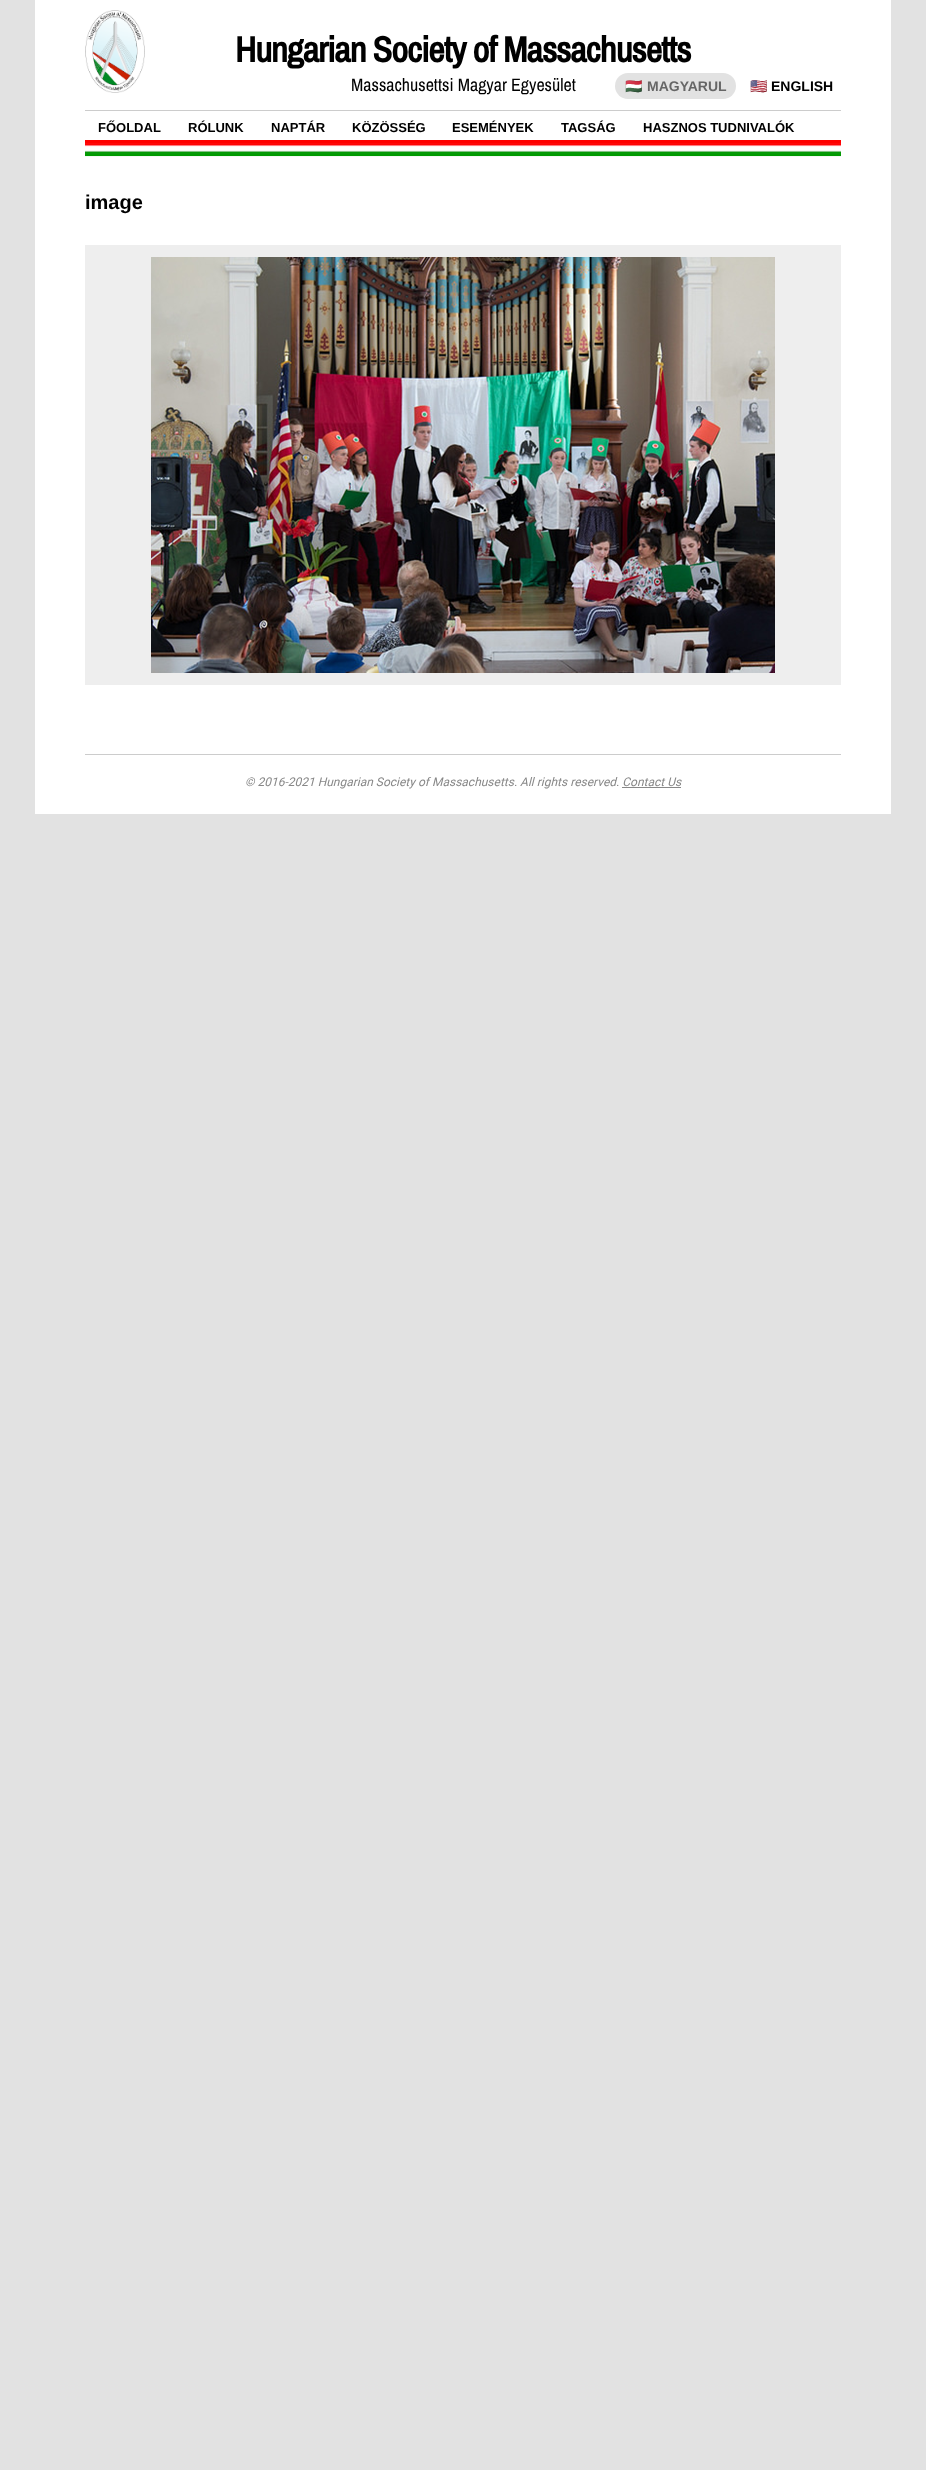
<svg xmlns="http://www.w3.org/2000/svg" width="926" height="2470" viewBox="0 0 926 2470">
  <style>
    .t1 { font: bold 36px Archivo Narrow; letter-spacing: -1.1px; fill: #000; }
    .t2 { font: 18px Archivo Narrow; fill: #000; }
    .t3 { font: bold 14px Noto Color Emoji; fill: #666; }
    .t4 { font: bold 14px Liberation Sans; fill: #666; }
    .t5 { font: bold 14px Noto Color Emoji; fill: #000; }
    .t6 { font: bold 14px Liberation Sans; fill: #000; }
    .t7 { font: bold 13px Liberation Sans; fill: #000; }
    .t8 { font: bold 20px Liberation Sans; fill: #000; }
    .t9 { font: italic 12px Roboto; fill: #888; }
  </style>
  <rect width="100%" height="100%" fill="#e2e2e2"/>
  <rect x="35" y="0" width="856" height="814" fill="#fff"/>
  <image x="85" y="10" width="60" height="83" href="images/1.png"/>
  <text x="235" y="62" class="t1">Hungarian Society of Massachusetts</text>
  <text x="351" y="91" class="t2">Massachusettsi Magyar Egyesület</text>
  <rect x="615" y="73" width="121" height="26" rx="13" fill="#e2e2e2"/>
  <text x="625" y="91" class="t3">🇭🇺</text>
  <text x="647" y="91" class="t4">MAGYARUL</text>
  <text x="750" y="91" class="t5">🇺🇸</text>
  <text x="771" y="91" class="t6">ENGLISH</text>
  <image x="85" y="140" width="756" height="17" href="images/2.png"/>
  <rect x="85" y="110" width="756" height="1" fill="#ccc"/>
  <text x="98" y="132" class="t7">FŐOLDAL</text>
  <text x="188" y="132" class="t7">RÓLUNK</text>
  <text x="271" y="132" class="t7">NAPTÁR</text>
  <text x="352" y="132" class="t7">KÖZÖSSÉG</text>
  <text x="452" y="132" class="t7">ESEMÉNYEK</text>
  <text x="561" y="132" class="t7">TAGSÁG</text>
  <text x="643" y="132" class="t7">HASZNOS TUDNIVALÓK</text>
  <text x="85" y="209" class="t8">image</text>
  <rect x="85" y="245" width="756" height="440" fill="#eee"/>
  <image x="151" y="257" width="624" height="416" href="images/3.png"/>
  <rect x="85" y="754" width="756" height="1" fill="#ccc"/>
  <text x="245" y="786" class="t9">© 2016-2021 Hungarian Society of Massachusetts. All rights reserved. Contact Us</text>
  <rect x="622" y="787" width="59" height="1" fill="#888"/>
</svg>
